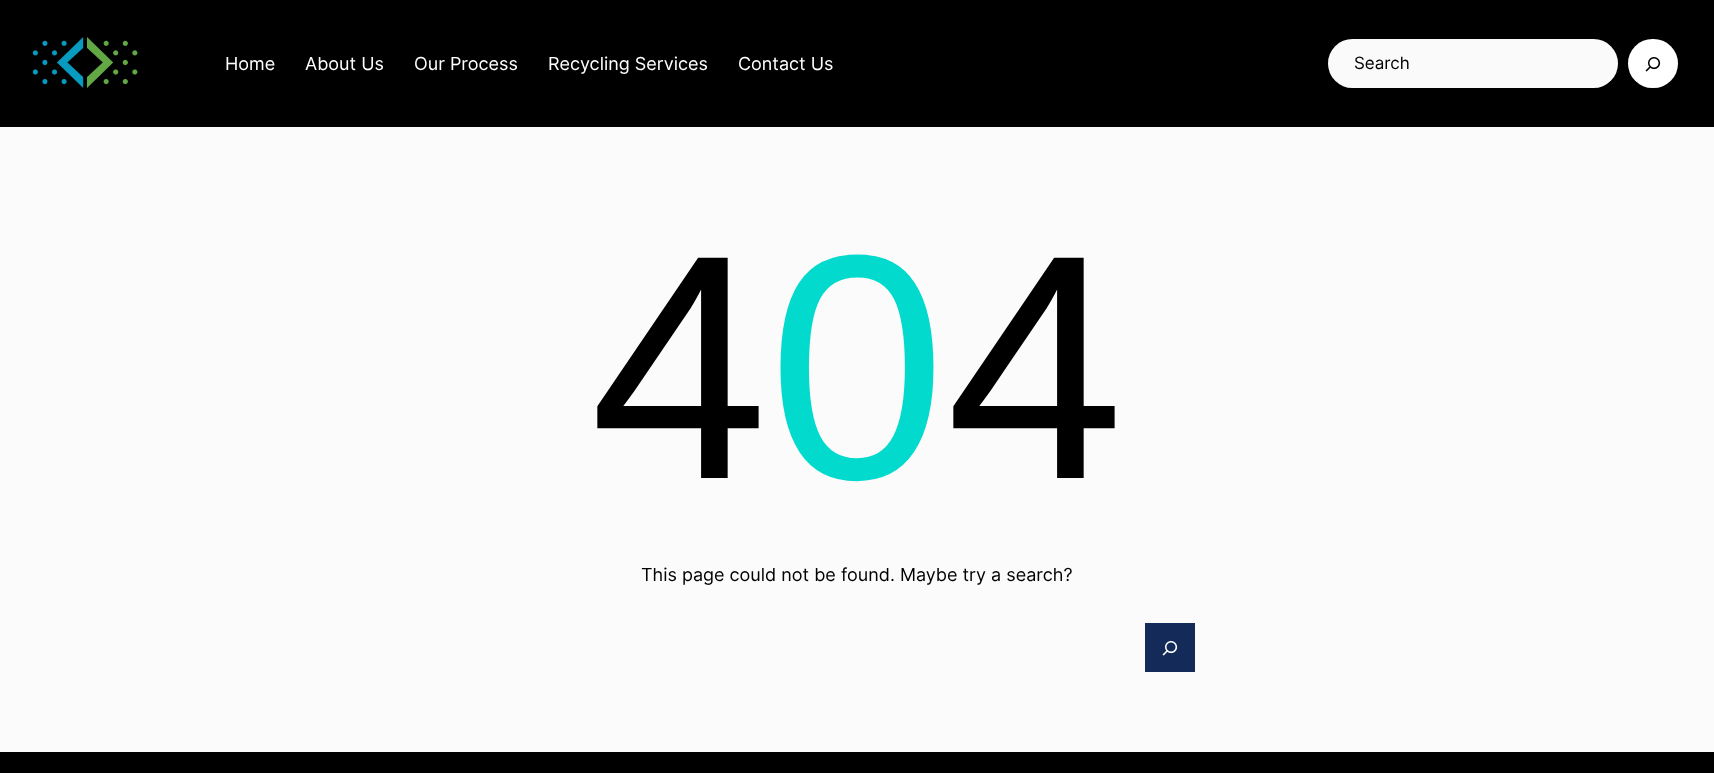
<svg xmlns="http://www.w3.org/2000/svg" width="1714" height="773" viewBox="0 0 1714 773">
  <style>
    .t1 { font: 18px Inter; fill: #fff; }
    .t2 { font: 17px Inter; fill: #000; }
    .t3 { font: 320px Liberation Sans; fill: #000; }
    .t4 { font: 320px Liberation Sans; fill: #01dacc; }
    .t5 { font: 18px Inter; fill: #000; }
  </style>
  <rect width="100%" height="100%" fill="#fbfbfb"/>
  <rect x="0" y="0" width="1714" height="127" fill="#000"/>
  <image x="32" y="37" width="106" height="51" href="images/1.png"/>
  <text x="225" y="70" class="t1">Home</text>
  <text x="305" y="70" class="t1">About Us</text>
  <text x="414" y="70" class="t1">Our Process</text>
  <text x="548" y="70" class="t1">Recycling Services</text>
  <text x="738" y="70" class="t1">Contact Us</text>
  <rect x="1328" y="39" width="290" height="49" rx="24.5" fill="#fafafa"/>
  <text x="1354" y="69" class="t2">Search</text>
  <rect x="1628" y="39" width="50" height="49" rx="24.5" fill="#fff"/>
  <image x="1645" y="57" width="16" height="15" href="images/2.png"/>
  <text x="590" y="478" class="t3">4</text>
  <text x="768" y="478" class="t4">0</text>
  <text x="946" y="478" class="t3">4</text>
  <text x="641" y="581" class="t5">This page could not be found. Maybe try a search?</text>
  <rect x="1145" y="623" width="50" height="49" fill="#142b5a"/>
  <image x="1162" y="641" width="16" height="15" href="images/3.png"/>
  <rect x="0" y="752" width="1714" height="21" fill="#000"/>
</svg>
